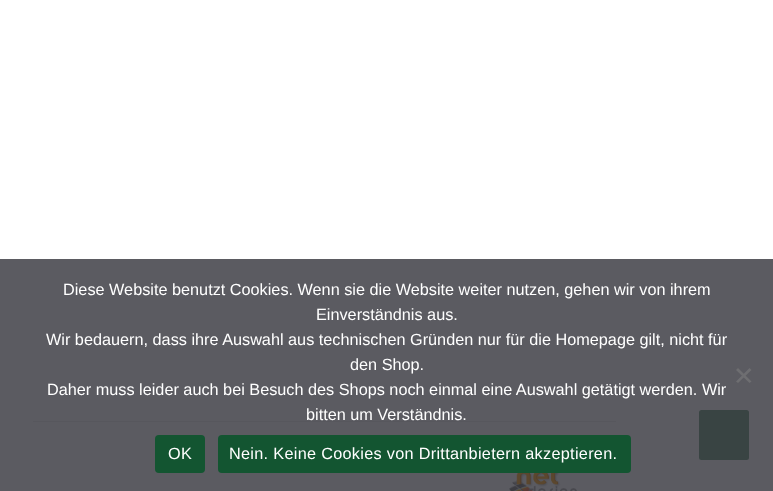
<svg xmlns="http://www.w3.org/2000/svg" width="773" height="491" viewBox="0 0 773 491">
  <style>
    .t1 { font: 16.25px Liberation Sans; fill: #fff; }
    .t2 { font: 16.25px Liberation Sans; letter-spacing: 0.3px; fill: #fff; }
  </style>
  <rect width="100%" height="100%" fill="#fff"/>
  <rect x="699" y="410" width="50" height="50" rx="2.5" fill="#578e6a"/>
  <rect x="33" y="421" width="583" height="1" fill="#e9e9e9"/>
  <image x="509" y="473" width="68" height="18" href="images/1.png"/>
  <rect x="0" y="259" width="773" height="232" fill="#32323acc"/>
  <text x="63" y="295" class="t1">Diese Website benutzt Cookies. Wenn sie die Website weiter nutzen, gehen wir von ihrem</text>
  <text x="316" y="320" class="t1">Einverständnis aus.</text>
  <text x="46" y="345" class="t1">Wir bedauern, dass ihre Auswahl aus technischen Gründen nur für die Homepage gilt, nicht für</text>
  <text x="350" y="370" class="t1">den Shop.</text>
  <text x="47" y="395" class="t1">Daher muss leider auch bei Besuch des Shops noch einmal eine Auswahl getätigt werden. Wir</text>
  <text x="306" y="420" class="t1">bitten um Verständnis.</text>
  <path d="M749.5 368L751.5 370L738 383L736 381.5Z" fill="#6e6e71"/>
  <path d="M736 370L738 368L751.5 381.5L749.5 383Z" fill="#6e6e71"/>
  <rect x="155" y="435" width="50" height="38" rx="4" fill="#135531"/>
  <text x="168" y="459" class="t2">OK</text>
  <rect x="218" y="435" width="413" height="38" rx="4" fill="#135531"/>
  <text x="229" y="459" class="t2">Nein. Keine Cookies von Drittanbietern akzeptieren.</text>
</svg>
